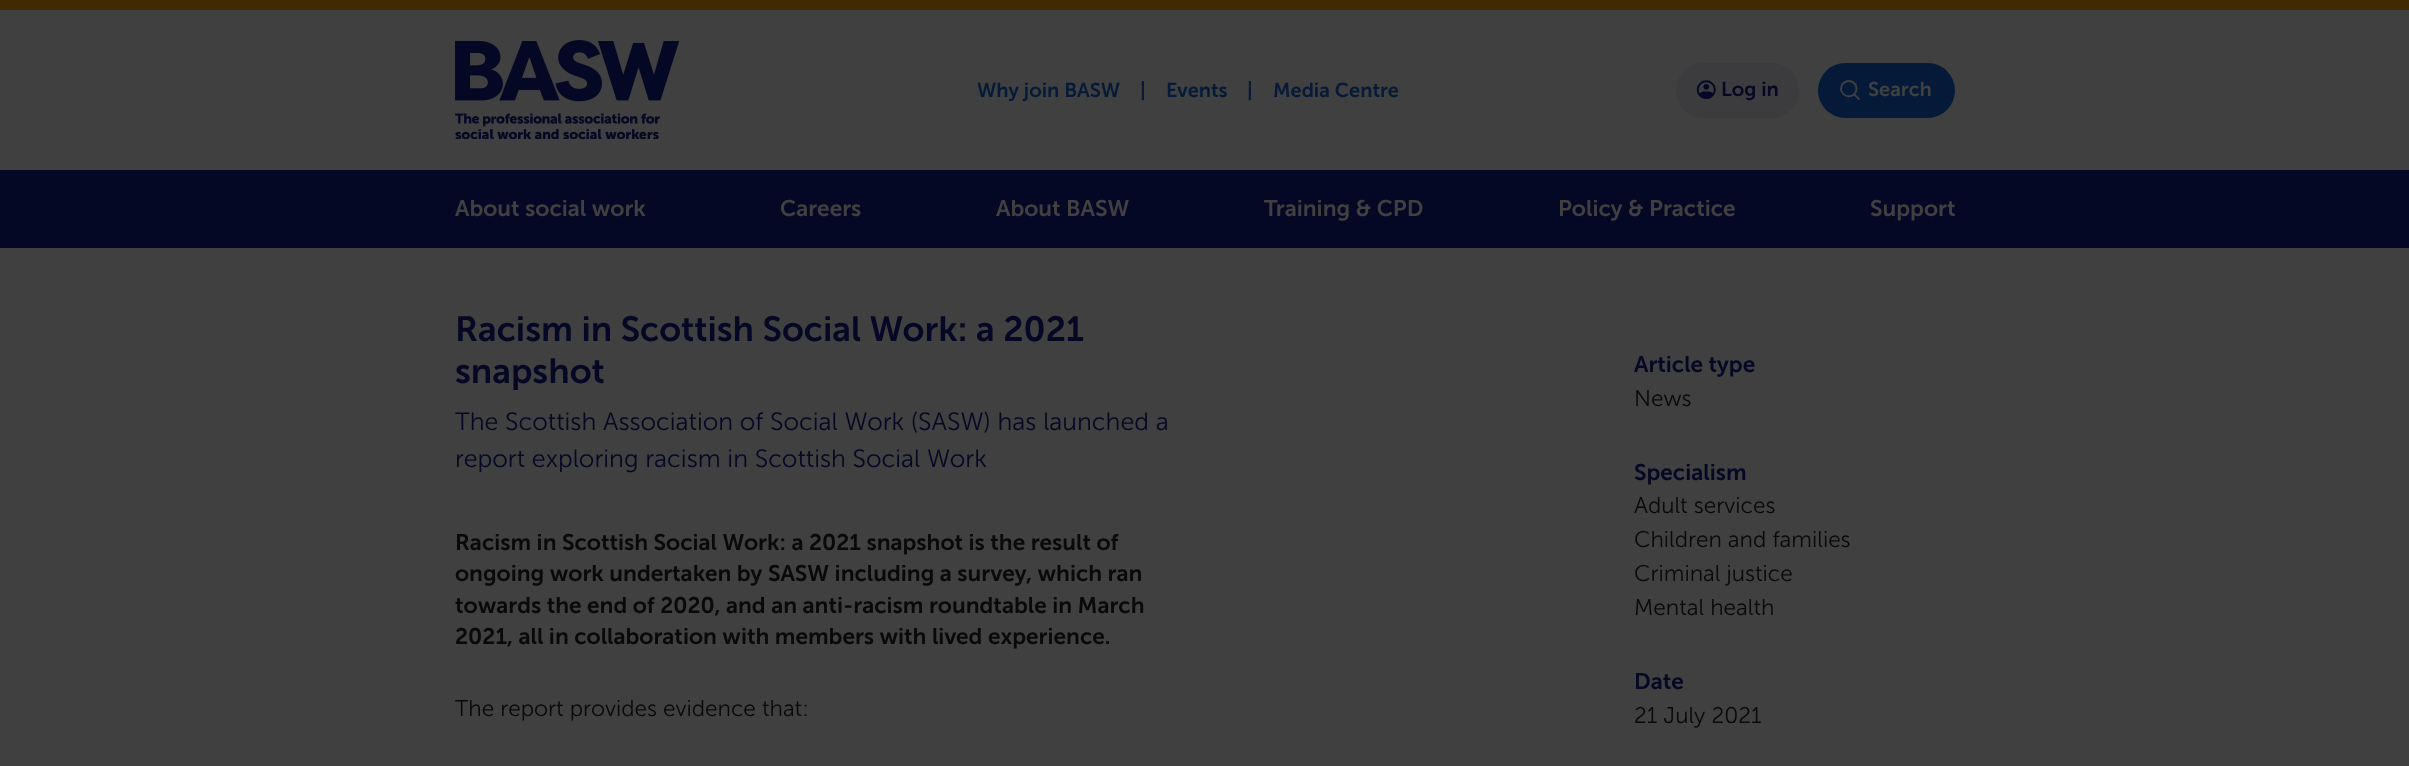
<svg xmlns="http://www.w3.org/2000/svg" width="2409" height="766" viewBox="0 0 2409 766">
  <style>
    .t1 { font: 600 20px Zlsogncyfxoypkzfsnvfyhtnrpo; fill: #051a38; }
    .t2 { font: 600 20px Zlsogncyfxoypkzfsnvfyhtnrpo; fill: #040824; }
    .t3 { font: 600 20px Zlsogncyfxoypkzfsnvfyhtnrpo; fill: #404040; }
    .t4 { font: 600 22.6px Zlsogncyfxoypkzfsnvfyhtnrpo; fill: #404040; }
    .t5 { font: 600 35px Zlsogncyfxoypkzfsnvfyhtnrpo; fill: #040824; }
    .t6 { font: 300 25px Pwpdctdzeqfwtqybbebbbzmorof; fill: #040824; }
    .t7 { font: 600 22.6px Zlsogncyfxoypkzfsnvfyhtnrpo; fill: #090909; }
    .t8 { font: 300 22.6px Pwpdctdzeqfwtqybbebbbzmorof; fill: #090909; }
    .t9 { font: 600 22.6px Zlsogncyfxoypkzfsnvfyhtnrpo; fill: #040824; }
  </style>
  <rect width="100%" height="100%" fill="#404040"/>
  <rect x="0" y="0" width="2409" height="10" fill="#402b00"/>
  <image x="455" y="40" width="224" height="99" href="images/1.png"/>
  <text x="977" y="97" class="t1">Why join BASW</text>
  <text x="1140" y="97" class="t1">|</text>
  <text x="1166" y="97" class="t1">Events</text>
  <text x="1247" y="97" class="t1">|</text>
  <text x="1273" y="97" class="t1">Media Centre</text>
  <rect x="1676" y="63" width="123" height="55" rx="27.5" fill="#3c3c3e"/>
  <image x="1696" y="80" width="20" height="19" href="images/2.png"/>
  <text x="1721" y="96" class="t2">Log in</text>
  <rect x="1818" y="63" width="137" height="55" rx="27.5" fill="#051a38"/>
  <image x="1840" y="80" width="20" height="20" href="images/3.png"/>
  <text x="1868" y="96" class="t3">Search</text>
  <rect x="0" y="170" width="2409" height="78" fill="#040824"/>
  <text x="455" y="216" class="t4">About social work</text>
  <text x="780" y="216" class="t4">Careers</text>
  <text x="996" y="216" class="t4">About BASW</text>
  <text x="1264" y="216" class="t4">Training &amp; CPD</text>
  <text x="1558" y="216" class="t4">Policy &amp; Practice</text>
  <text x="1870" y="216" class="t4">Support</text>
  <text x="455" y="341" class="t5">Racism in Scottish Social Work: a 2021</text>
  <text x="455" y="383" class="t5">snapshot</text>
  <text x="455" y="430" class="t6">The Scottish Association of Social Work (SASW) has launched a</text>
  <text x="455" y="467" class="t6">report exploring racism in Scottish Social Work</text>
  <text x="455" y="550" class="t7">Racism in Scottish Social Work: a 2021 snapshot is the result of</text>
  <text x="455" y="581" class="t7">ongoing work undertaken by SASW including a survey, which ran</text>
  <text x="455" y="613" class="t7">towards the end of 2020, and an anti-racism roundtable in March</text>
  <text x="455" y="644" class="t7">2021, all in collaboration with members with lived experience.</text>
  <text x="455" y="716" class="t8">The report provides evidence that:</text>
  <text x="1634" y="372" class="t9">Article type</text>
  <text x="1634" y="406" class="t8">News</text>
  <text x="1634" y="480" class="t9">Specialism</text>
  <text x="1634" y="513" class="t8">Adult services</text>
  <text x="1634" y="547" class="t8">Children and families</text>
  <text x="1634" y="581" class="t8">Criminal justice</text>
  <text x="1634" y="615" class="t8">Mental health</text>
  <text x="1634" y="689" class="t9">Date</text>
  <text x="1634" y="723" class="t8">21 July 2021</text>
</svg>
